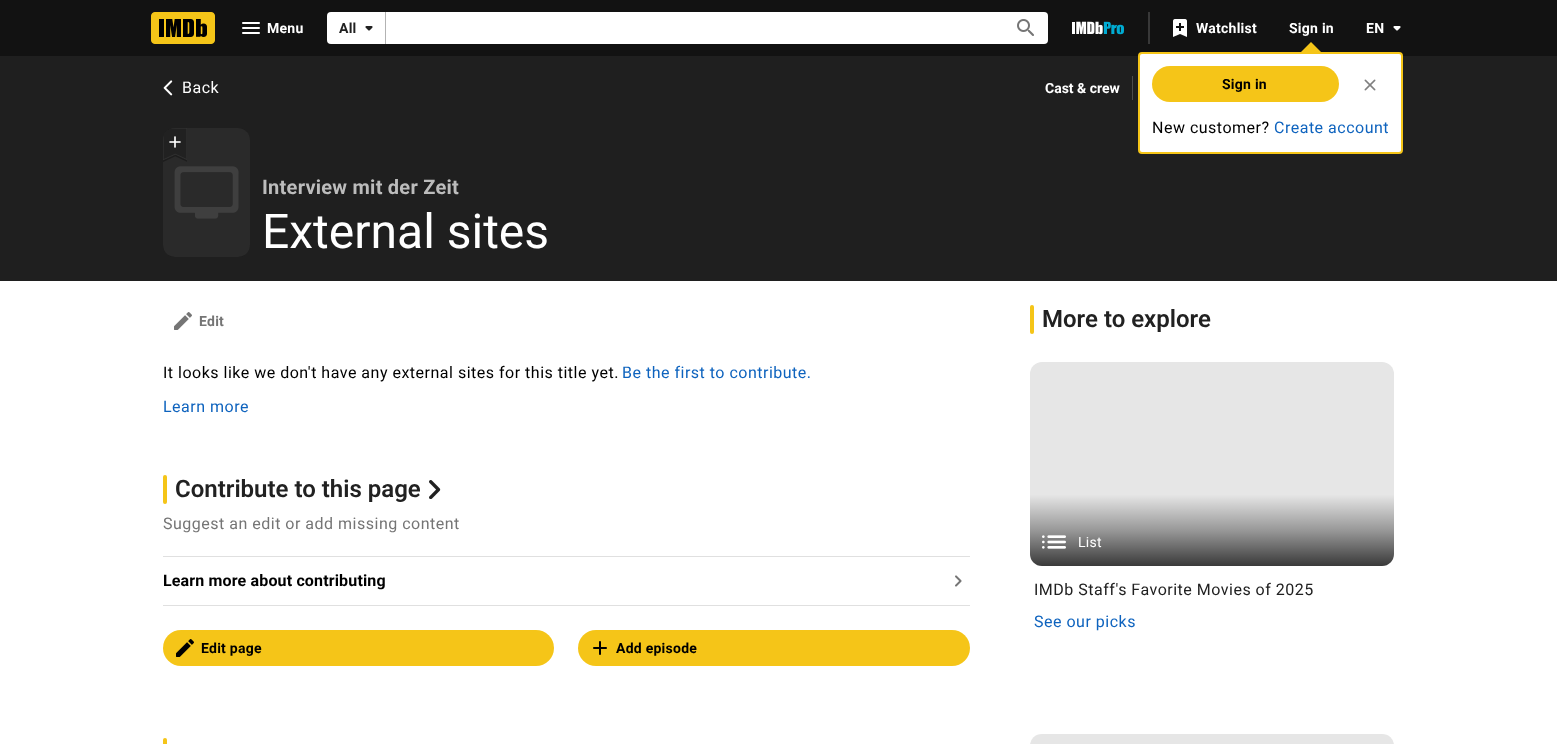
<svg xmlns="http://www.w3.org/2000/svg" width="1557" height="744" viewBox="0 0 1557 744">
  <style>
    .t1 { font: bold 14px Roboto; letter-spacing: 0.25px; fill: #212121; }
    .t2 { font: bold 14px Roboto; letter-spacing: 0.25px; fill: #fff; }
    .t3 { font: bold 14px Roboto; letter-spacing: 0.25px; fill: #000; }
    .t4 { font: 16px Roboto; letter-spacing: 0.5px; fill: #000; }
    .t5 { font: 16px Roboto; letter-spacing: 0.5px; fill: #0e63be; }
    .t6 { font: 16px Roboto; letter-spacing: 0.5px; fill: #fff; }
    .t7 { font: bold 14px Roboto; fill: #fff; }
    .t8 { font: bold 20px Roboto; letter-spacing: 0.25px; fill: #bcbcbc; }
    .t9 { font: 48px Roboto; fill: #fff; }
    .t10 { font: bold 14px Roboto; letter-spacing: 0.25px; fill: #757575; }
    .t11 { font: 600 24px Roboto; fill: #212121; }
    .t12 { font: 16px Roboto; letter-spacing: 0.5px; fill: #757575; }
    .t13 { font: bold 16px Roboto; letter-spacing: 0.15px; fill: #000; }
    .t14 { font: 14px Roboto; letter-spacing: 0.25px; fill: #fff; }
    .t15 { font: 16px Roboto; letter-spacing: 0.5px; fill: #212121; }
  </style>
  <defs>
    <linearGradient id="g1" gradientUnits="userSpaceOnUse" x1="1212" y1="362" x2="1212" y2="566"><stop offset="0" stop-color="#000" stop-opacity="0"/><stop offset="0.65" stop-color="#000" stop-opacity="0"/><stop offset="0.83" stop-color="#000" stop-opacity="0.35"/><stop offset="1" stop-color="#000" stop-opacity="0.75"/></linearGradient>
  </defs>
  <rect width="100%" height="100%" fill="#fff"/>
  <rect x="0" y="0" width="1557" height="56" fill="#121212"/>
  <image x="151" y="12" width="64" height="32" href="images/1.png"/>
  <rect x="327" y="12" width="721" height="32" rx="4" fill="#fff"/>
  <rect x="385" y="12" width="1" height="32" fill="#b3b3b3"/>
  <text x="339" y="33" class="t1">All</text>
  <image x="365" y="26" width="8" height="5" href="images/2.png"/>
  <image x="1017" y="19" width="17" height="17" href="images/3.png"/>
  <image x="1072" y="21" width="52" height="14" href="images/4.png"/>
  <rect x="1148" y="12" width="2" height="32" fill="#383838"/>
  <text x="1289" y="33" class="t2">Sign in</text>
  <rect x="0" y="56" width="1557" height="225" fill="#1f1f1f"/>
  <rect x="1139" y="53" width="263" height="100" rx="3" fill="#fff" stroke="#f5c518" stroke-width="2"/>
  <path d="M1299 54H1323L1311 42Z" fill="#f5c518"/>
  <rect x="1152" y="66" width="187" height="36" rx="18" fill="#f5c518"/>
  <text x="1222" y="89" class="t3">Sign in</text>
  <image x="1364" y="79" width="12" height="12" href="images/5.png"/>
  <text x="1152" y="133" class="t4">New customer?</text>
  <text x="1274" y="133" class="t5">Create account</text>
  <image x="242" y="22" width="18" height="12" href="images/6.png"/>
  <text x="267" y="33" class="t2">Menu</text>
  <image x="1173" y="19" width="14" height="18" href="images/7.png"/>
  <text x="1196" y="33" class="t2">Watchlist</text>
  <text x="1366" y="33" class="t2">EN</text>
  <image x="1393" y="26" width="8" height="5" href="images/8.png"/>
  <image x="163" y="80" width="10" height="16" href="images/9.png"/>
  <text x="182" y="93" class="t6">Back</text>
  <text x="1045" y="93" class="t7">Cast &amp; crew</text>
  <rect x="1132" y="76" width="1" height="24" fill="#4c4c4c"/>
  <rect x="163" y="128" width="87" height="129" rx="12" fill="#121212"/>
  <rect x="163" y="128" width="87" height="129" rx="12" fill="#ffffff1a"/>
  <image x="174" y="166" width="65" height="53" href="images/10.png"/>
  <image x="163" y="128" width="24" height="34" href="images/11.png"/>
  <image x="169" y="136" width="12" height="12" href="images/12.png"/>
  <text x="262" y="194" class="t8">Interview mit der Zeit</text>
  <text x="262" y="248" class="t9">External sites</text>
  <image x="174" y="312" width="18" height="18" href="images/13.png"/>
  <text x="199" y="326" class="t10">Edit</text>
  <text x="163" y="378" class="t4">It looks like we don't have any external sites for this title yet.</text>
  <text x="622" y="378" class="t5">Be the first to contribute.</text>
  <text x="163" y="412" class="t5">Learn more</text>
  <rect x="163" y="475" width="4" height="29" rx="2" fill="#f5c518"/>
  <text x="175" y="497" class="t11">Contribute to this page</text>
  <image x="429" y="480" width="12" height="19" href="images/14.png"/>
  <text x="163" y="529" class="t12">Suggest an edit or add missing content</text>
  <rect x="163" y="556" width="807" height="1" fill="#e0e0e0"/>
  <rect x="163" y="605" width="807" height="1" fill="#e0e0e0"/>
  <text x="163" y="586" class="t13">Learn more about contributing</text>
  <image x="955" y="575" width="7" height="12" href="images/15.png"/>
  <rect x="163" y="630" width="391" height="36" rx="18" fill="#f5c518"/>
  <image x="176" y="639" width="18" height="18" href="images/16.png"/>
  <text x="201" y="653" class="t3">Edit page</text>
  <rect x="578" y="630" width="392" height="36" rx="18" fill="#f5c518"/>
  <image x="593" y="641" width="14" height="14" href="images/17.png"/>
  <text x="616" y="653" class="t3">Add episode</text>
  <rect x="163" y="738" width="4" height="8" rx="2" fill="#f5c518"/>
  <rect x="1030" y="305" width="4" height="29" rx="2" fill="#f5c518"/>
  <text x="1042" y="327" class="t11">More to explore</text>
  <rect x="1030" y="362" width="364" height="204" rx="12" fill="#e6e6e6"/>
  <rect x="1030" y="362" width="364" height="204" rx="12" fill="url(#g1)"/>
  <image x="1042" y="535" width="24" height="14" href="images/18.png"/>
  <text x="1078" y="547" class="t14">List</text>
  <text x="1034" y="595" class="t15">IMDb Staff's Favorite Movies of 2025</text>
  <text x="1034" y="627" class="t5">See our picks</text>
  <rect x="1030" y="734" width="364" height="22" rx="12" fill="#e6e6e6"/>
</svg>
